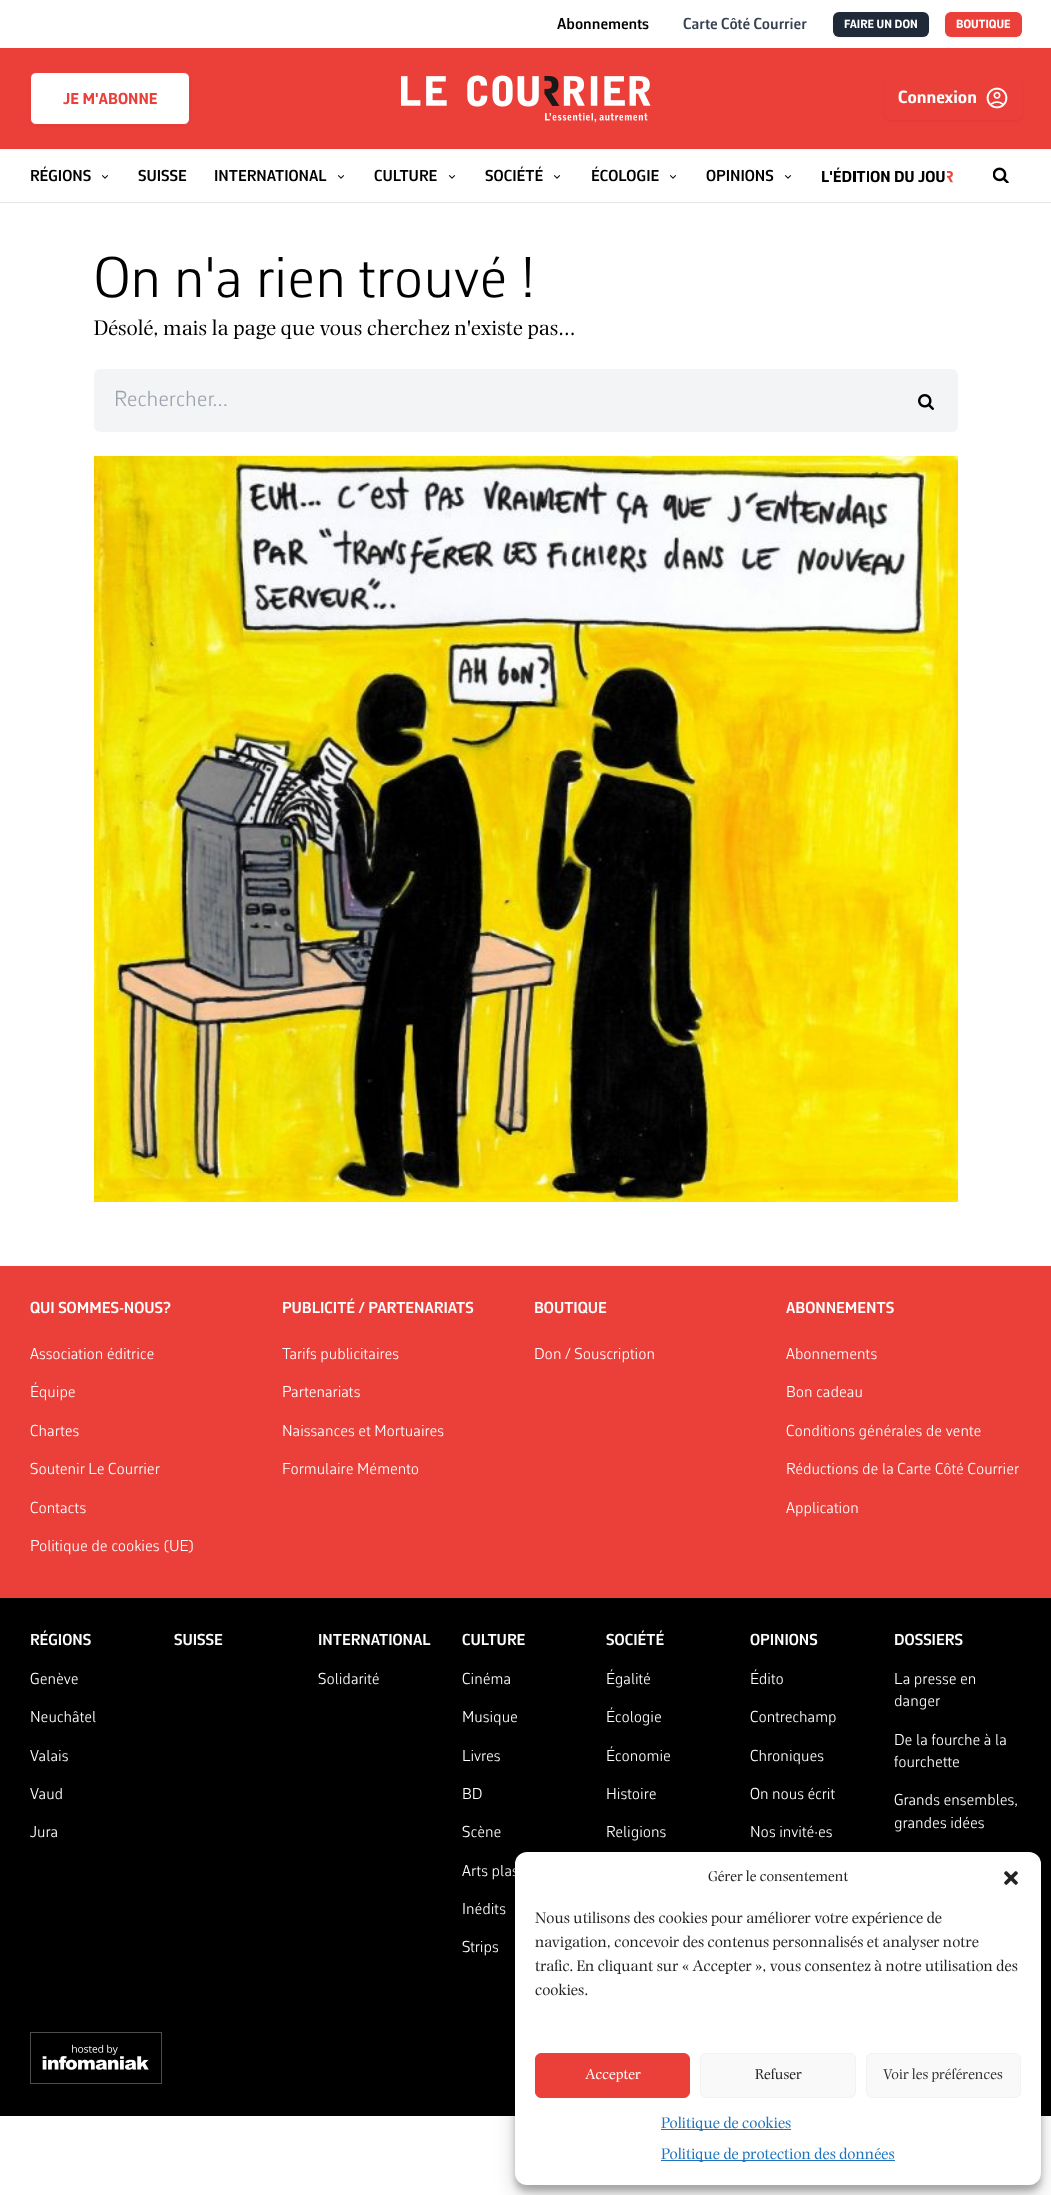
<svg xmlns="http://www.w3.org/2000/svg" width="1051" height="2195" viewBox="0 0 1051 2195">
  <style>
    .t1 { font: 600 16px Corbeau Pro; fill: #000; }
    .t2 { font: 600 16px Corbeau Pro; fill: #374151; }
    .t3 { font: bold 12px Corbeau Pro; fill: #fff; }
    .t4 { font: bold 16px Corbeau Pro; fill: #eb3f3a; }
    .t5 { font: bold 18px Corbeau Pro; fill: #fff; }
    .t6 { font: 300 58px Corbeau Pro; fill: #000; }
    .t7 { font: 22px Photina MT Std; fill: #000; }
    .t8 { font: 300 22px Corbeau Pro; fill: #9ca3af; }
    .t9 { font: 600 16px Corbeau Pro; fill: #fff; }
    .t10 { font: 300 16px Corbeau Pro; fill: #fff; }
    .t11 { font: 15px Photina MT Std; fill: #222; }
    .t12 { font: 16px Photina MT Std; fill: #222; }
    .t13 { font: 15px Photina MT Std; fill: #fff; }
    .t14 { font: 15px Photina MT Std; fill: #333; }
    .t15 { font: 16px Photina MT Std; fill: #1e73be; }
  </style>
  <rect width="100%" height="100%" fill="#fff"/>
  <rect x="0" y="48" width="1051" height="101" fill="#eb3f3a"/>
  <text x="557" y="29" class="t1">Abonnements</text>
  <text x="683" y="29" class="t2">Carte Côté Courrier</text>
  <rect x="833" y="13" width="96" height="25" rx="6" fill="#0000000d" filter="blur(1px)"/>
  <rect x="833" y="12" width="96" height="25" rx="6" fill="#1f2937"/>
  <text x="844" y="28" class="t3">FAIRE UN DON</text>
  <rect x="945" y="13" width="77" height="25" rx="6" fill="#0000000d" filter="blur(1px)"/>
  <rect x="945" y="12" width="77" height="25" rx="6" fill="#eb3f3a"/>
  <text x="956" y="28" class="t3">BOUTIQUE</text>
  <rect x="30" y="73" width="160" height="53" rx="6" fill="#0000000d" filter="blur(1px)"/>
  <rect x="30.5" y="72.5" width="159" height="52" rx="5.5" fill="#fff" stroke="#eb3f3a"/>
  <text x="63" y="104" class="t4">JE M'ABONNE</text>
  <image x="401" y="75" width="250" height="48" href="images/1.png"/>
  <rect x="885" y="78" width="137" height="43" rx="6" fill="#0000000d" filter="blur(1px)"/>
  <rect x="885" y="77" width="137" height="43" rx="6" fill="#eb3f3a"/>
  <text x="898" y="103" class="t5">Connexion</text>
  <image x="986" y="87" width="22" height="22" href="images/2.png"/>
  <rect x="0" y="202" width="1051" height="1" fill="#e5e7eb"/>
  <text x="30" y="181" class="t1">RÉGIONS</text>
  <image x="101" y="175" width="8" height="4" href="images/3.png"/>
  <text x="138" y="181" class="t1">SUISSE</text>
  <text x="214" y="181" class="t1">INTERNATIONAL</text>
  <image x="337" y="175" width="8" height="4" href="images/3.png"/>
  <text x="374" y="181" class="t1">CULTURE</text>
  <image x="448" y="175" width="8" height="4" href="images/3.png"/>
  <text x="485" y="181" class="t1">SOCIÉTÉ</text>
  <image x="553" y="175" width="8" height="4" href="images/3.png"/>
  <text x="591" y="181" class="t1">ÉCOLOGIE</text>
  <image x="669" y="175" width="8" height="4" href="images/3.png"/>
  <text x="706" y="181" class="t1">OPINIONS</text>
  <image x="784" y="175" width="8" height="4" href="images/3.png"/>
  <image x="822" y="167" width="131" height="16" href="images/4.png"/>
  <image x="993" y="167" width="16" height="16" href="images/5.png"/>
  <text x="94" y="297" class="t6">On n'a rien trouvé !</text>
  <text x="94" y="335" class="t7">Désolé, mais la page que vous cherchez n'existe pas...</text>
  <rect x="94" y="369" width="864" height="63" rx="6" fill="#f3f4f6"/>
  <text x="114" y="406" class="t8">Rechercher...</text>
  <image x="918" y="394" width="16" height="16" href="images/6.png"/>
  <image x="94" y="456" width="864" height="746" href="images/7.png"/>
  <rect x="0" y="1266" width="1051" height="332" fill="#eb3f3a"/>
  <text x="30" y="1313" class="t9">QUI SOMMES-NOUS?</text>
  <text x="30" y="1359" class="t10">Association éditrice</text>
  <text x="30" y="1397" class="t10">Équipe</text>
  <text x="30" y="1436" class="t10">Chartes</text>
  <text x="30" y="1474" class="t10">Soutenir Le Courrier</text>
  <text x="30" y="1513" class="t10">Contacts</text>
  <text x="30" y="1551" class="t10">Politique de cookies (UE)</text>
  <text x="282" y="1313" class="t9">PUBLICITÉ / PARTENARIATS</text>
  <text x="282" y="1359" class="t10">Tarifs publicitaires</text>
  <text x="282" y="1397" class="t10">Partenariats</text>
  <text x="282" y="1436" class="t10">Naissances et Mortuaires</text>
  <text x="282" y="1474" class="t10">Formulaire Mémento</text>
  <text x="534" y="1313" class="t9">BOUTIQUE</text>
  <text x="534" y="1359" class="t10">Don / Souscription</text>
  <text x="786" y="1313" class="t9">ABONNEMENTS</text>
  <text x="786" y="1359" class="t10">Abonnements</text>
  <text x="786" y="1397" class="t10">Bon cadeau</text>
  <text x="786" y="1436" class="t10">Conditions générales de vente</text>
  <text x="786" y="1474" class="t10">Réductions de la Carte Côté Courrier</text>
  <text x="786" y="1513" class="t10">Application</text>
  <rect x="0" y="1598" width="1051" height="518" fill="#000"/>
  <text x="30" y="1645" class="t9">RÉGIONS</text>
  <text x="30" y="1684" class="t10">Genève</text>
  <text x="30" y="1722" class="t10">Neuchâtel</text>
  <text x="30" y="1761" class="t10">Valais</text>
  <text x="30" y="1799" class="t10">Vaud</text>
  <text x="30" y="1837" class="t10">Jura</text>
  <text x="174" y="1645" class="t9">SUISSE</text>
  <text x="318" y="1645" class="t9">INTERNATIONAL</text>
  <text x="318" y="1684" class="t10">Solidarité</text>
  <text x="462" y="1645" class="t9">CULTURE</text>
  <text x="462" y="1684" class="t10">Cinéma</text>
  <text x="462" y="1722" class="t10">Musique</text>
  <text x="462" y="1761" class="t10">Livres</text>
  <text x="462" y="1799" class="t10">BD</text>
  <text x="462" y="1837" class="t10">Scène</text>
  <text x="462" y="1876" class="t10">Arts plas</text>
  <text x="462" y="1914" class="t10">Inédits</text>
  <text x="462" y="1952" class="t10">Strips</text>
  <text x="606" y="1645" class="t9">SOCIÉTÉ</text>
  <text x="606" y="1684" class="t10">Égalité</text>
  <text x="606" y="1722" class="t10">Écologie</text>
  <text x="606" y="1761" class="t10">Économie</text>
  <text x="606" y="1799" class="t10">Histoire</text>
  <text x="606" y="1837" class="t10">Religions</text>
  <text x="750" y="1645" class="t9">OPINIONS</text>
  <text x="750" y="1684" class="t10">Édito</text>
  <text x="750" y="1722" class="t10">Contrechamp</text>
  <text x="750" y="1761" class="t10">Chroniques</text>
  <text x="750" y="1799" class="t10">On nous écrit</text>
  <text x="750" y="1837" class="t10">Nos invité·es</text>
  <text x="894" y="1645" class="t9">DOSSIERS</text>
  <text x="894" y="1684" class="t10">La presse en</text>
  <text x="894" y="1706" class="t10">danger</text>
  <text x="894" y="1745" class="t10">De la fourche à la</text>
  <text x="894" y="1767" class="t10">fourchette</text>
  <text x="894" y="1805" class="t10">Grands ensembles,</text>
  <text x="894" y="1828" class="t10">grandes idées</text>
  <image x="30" y="2032" width="132" height="52" href="images/8.png"/>
  <rect x="515" y="1858" width="526" height="333" rx="12" fill="#0000003b" filter="blur(3px)"/>
  <rect x="515" y="1862" width="526" height="333" rx="12" fill="#00000030" filter="blur(10px)"/>
  <rect x="515" y="1852" width="526" height="333" rx="12" fill="#fff"/>
  <text x="708" y="1881" class="t11">Gérer le consentement</text>
  <image x="1004" y="1871" width="14" height="14" href="images/9.png"/>
  <text x="535" y="1923" class="t12">Nous utilisons des cookies pour améliorer votre expérience de</text>
  <text x="535" y="1947" class="t12">navigation, concevoir des contenus personnalisés et analyser notre</text>
  <text x="535" y="1971" class="t12">trafic. En cliquant sur « Accepter », vous consentez à notre utilisation des</text>
  <text x="535" y="1995" class="t12">cookies.</text>
  <rect x="535.5" y="2053.5" width="154" height="44" rx="5.5" fill="#eb4039" stroke="#eb4039"/>
  <text x="585" y="2079" class="t13">Accepter</text>
  <rect x="700.5" y="2053.5" width="155" height="44" rx="5.5" fill="#f9f9f9" stroke="#f2f2f2"/>
  <text x="755" y="2079" class="t11">Refuser</text>
  <rect x="866.5" y="2053.5" width="154" height="44" rx="5.5" fill="#f9f9f9" stroke="#f2f2f2"/>
  <text x="883" y="2079" class="t14">Voir les préférences</text>
  <rect x="661" y="2129" width="130" height="1" fill="#1e73be"/>
  <text x="661" y="2128" class="t15">Politique de cookies</text>
  <rect x="661" y="2160" width="234" height="1" fill="#1e73be"/>
  <text x="661" y="2159" class="t15">Politique de protection des données</text>
</svg>
